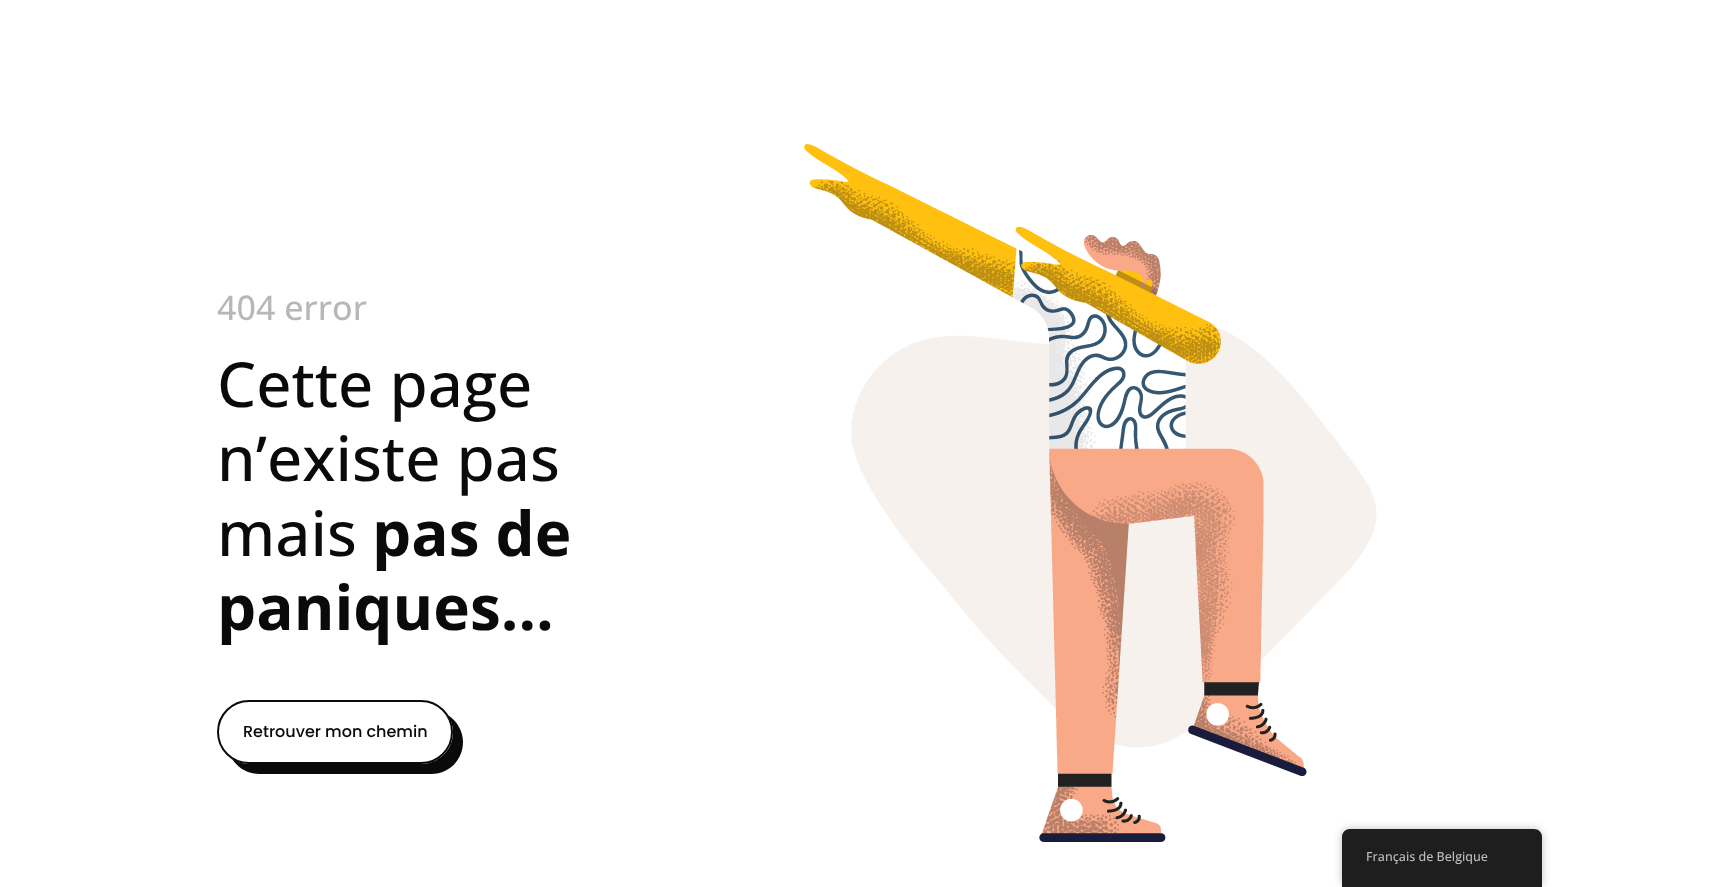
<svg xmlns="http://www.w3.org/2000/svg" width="1713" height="887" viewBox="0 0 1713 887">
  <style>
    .t1 { font: 500 34px Open Sans; fill: #b7b7b7; }
    .t2 { font: 500 62px Open Sans; fill: #0a0a0a; }
    .t3 { font: bold 62px Open Sans; fill: #0a0a0a; }
    .t4 { font: 500 16px Poppins; fill: #0a0a0a; }
    .t5 { font: 500 12.5px Open Sans; fill: #bdbdbd; }
  </style>
  <rect width="100%" height="100%" fill="#fff"/>
  <text x="217" y="320" class="t1">404 error</text>
  <text x="217" y="407" class="t2">Cette page</text>
  <text x="217" y="481" class="t2">n’existe pas</text>
  <text x="217" y="556" class="t2">mais</text>
  <text x="372" y="556" class="t3">pas de</text>
  <text x="217" y="630" class="t3">paniques…</text>
  <path d="M232 759C238 768 248 774 259 774H431C449 774 463 760 463 742C463 731 457 721 448 715C451 720 453 726 453 732C453 750 439 764 421 764H249C243 764 237 762 232 759Z" fill="#0a0a0a"/>
  <rect x="218" y="701" width="234" height="62" rx="31" fill="none" stroke="#0a0a0a" stroke-width="2"/>
  <text x="243" y="737" class="t4">Retrouver mon chemin</text>
  <image x="804" y="144" width="573" height="698" href="images/1.png"/>
  <rect x="1342" y="829" width="200" height="58" rx="8" fill="#00000040" filter="blur(4px)"/>
  <path d="M1350 829H1534C1538.5 829 1542 832.5 1542 837V887H1342V837C1342 832.5 1345.5 829 1350 829Z" fill="#1e1e1e"/>
  <text x="1366" y="861" class="t5">Français de Belgique</text>
</svg>
